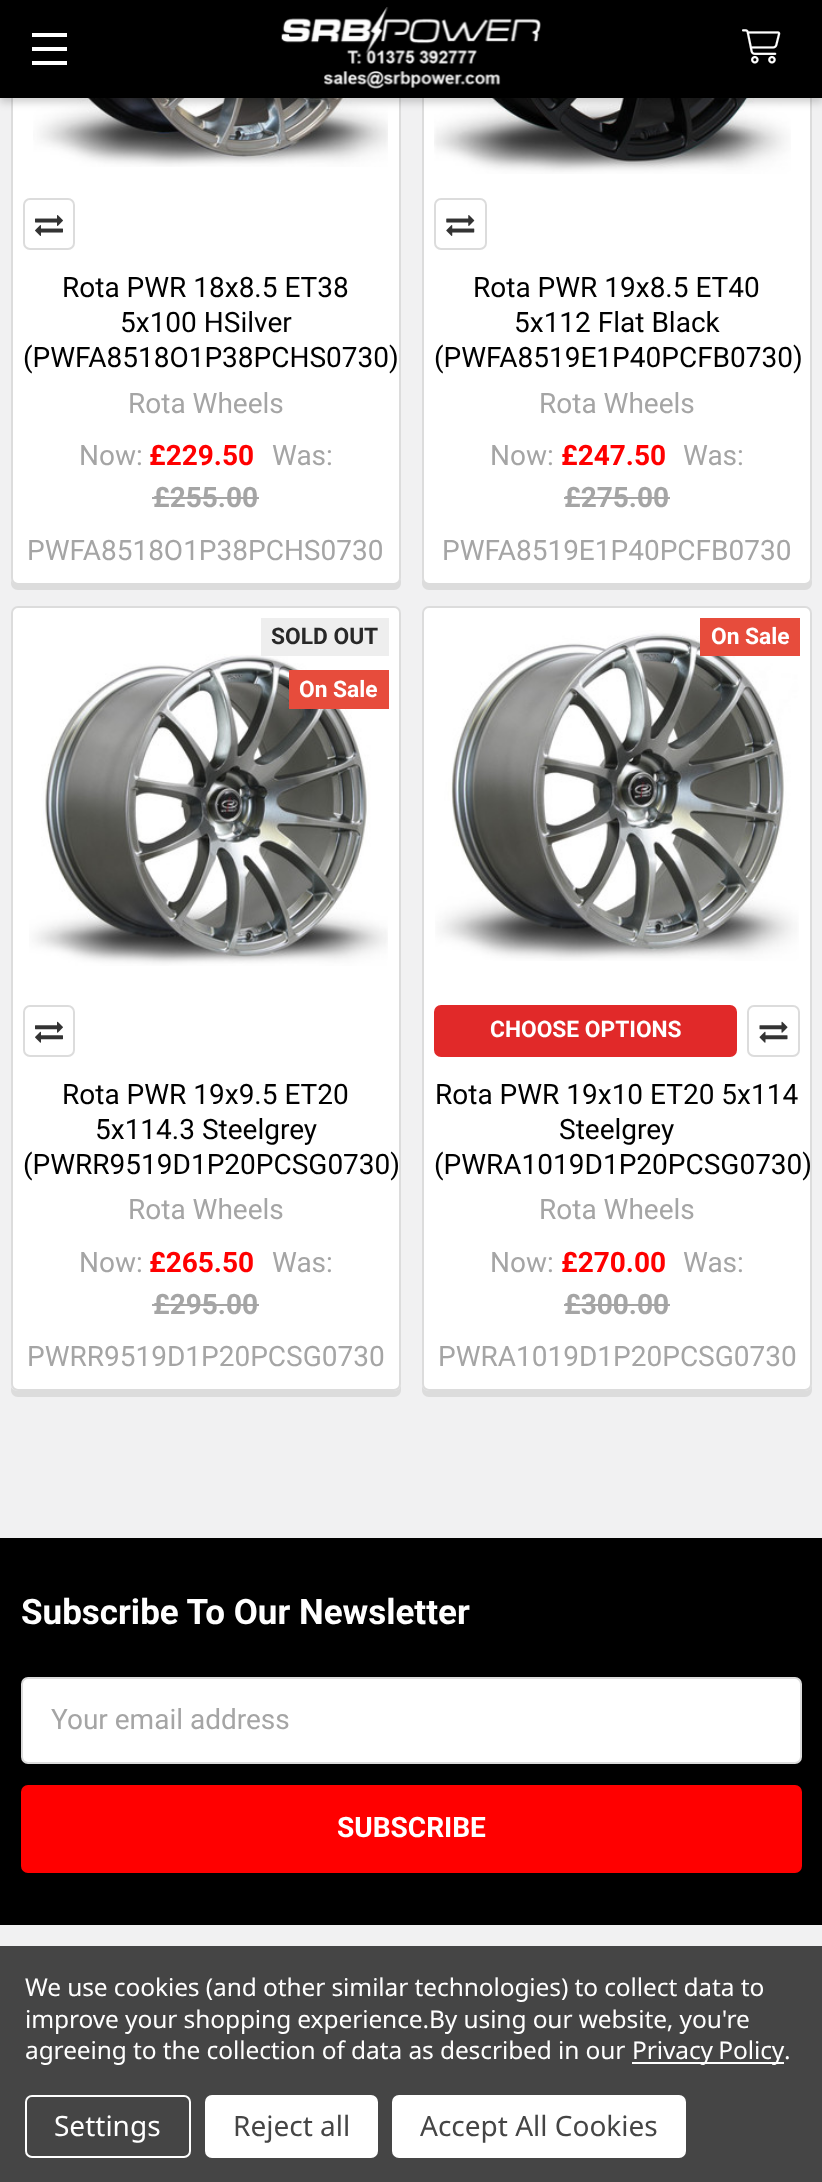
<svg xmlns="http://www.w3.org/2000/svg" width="822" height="2182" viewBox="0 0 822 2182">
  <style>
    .t1 { font: 28px Roboto; fill: #000; }
    .t2 { font: 28px Roboto; fill: #a5a5a5; }
    .t3 { font: bold 28px Roboto; fill: #f00; }
    .t4 { font: bold 28px Roboto; fill: #a5a5a5; }
    .t5 { font: bold 22.75px Roboto; fill: #282828; }
    .t6 { font: bold 22.75px Roboto; fill: #fff; }
    .t7 { font: bold 35px Roboto; fill: #fff; }
    .t8 { font: bold 28px Roboto; fill: #fff; }
    .t9 { font: 24.5px Noto Sans; letter-spacing: -0.1px; fill: #fff; }
    .t10 { font: 28px Noto Sans; fill: #fff; }
    .t11 { font: 28px Noto Sans; fill: #454545; }
  </style>
  <rect width="100%" height="100%" fill="#f1f1f2"/>
  <path d="M11 580V583C11 587 14 590 18 590H394C398 590 401 587 401 583V-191V578C401 581 398 584 394 584H18C15 584 12 583 11 580Z" fill="#dcdcdc"/>
  <rect x="12" y="-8" width="388" height="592" rx="6" fill="#fff" stroke="#dcdcdc" stroke-width="2"/>
  <image x="33" y="98" width="355" height="69" href="images/3.png"/>
  <path d="M422 579V583C422 587 425 590 429 590H805C809 590 812 587 812 583V578C812 581 809 584 805 584H429C426 584 423 582 422 579Z" fill="#dcdcdc"/>
  <rect x="423" y="-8" width="388" height="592" rx="6" fill="#fff" stroke="#dcdcdc" stroke-width="2"/>
  <image x="434" y="98" width="357" height="76" href="images/5.png"/>
  <rect x="0" y="4" width="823" height="98" fill="#00000033" filter="blur(4.5px)"/>
  <rect x="0" y="0" width="822" height="98" fill="#000"/>
  <rect x="32" y="47" width="35" height="4" fill="#fff"/>
  <rect x="32" y="33" width="35" height="4" fill="#fff"/>
  <rect x="32" y="61" width="35" height="4" fill="#fff"/>
  <image x="281" y="7" width="260" height="82" href="images/1.png"/>
  <image x="742" y="29" width="39" height="35" href="images/2.png"/>
  <rect x="24" y="199" width="50" height="50" rx="6" fill="none" stroke="#dcdcdc" stroke-width="2"/>
  <image x="35" y="215" width="28" height="21" href="images/4.png"/>
  <text x="62" y="297" class="t1">Rota PWR 18x8.5 ET38</text>
  <text x="120" y="332" class="t1">5x100 HSilver</text>
  <text x="23" y="367" class="t1">(PWFA8518O1P38PCHS0730)</text>
  <text x="128" y="413" class="t2">Rota Wheels</text>
  <text x="79" y="465" class="t2">Now:</text>
  <text x="149" y="465" class="t3">£229.50</text>
  <text x="272" y="465" class="t2">Was:</text>
  <text x="153" y="507" class="t4">£255.00</text>
  <rect x="152" y="497" width="107" height="2" fill="#a5a5a5"/>
  <text x="27" y="560" class="t2">PWFA8518O1P38PCHS0730</text>
  <rect x="435" y="199" width="51" height="50" rx="6" fill="none" stroke="#dcdcdc" stroke-width="2"/>
  <image x="446" y="215" width="29" height="21" href="images/6.png"/>
  <text x="473" y="297" class="t1">Rota PWR 19x8.5 ET40</text>
  <text x="514" y="332" class="t1">5x112 Flat Black</text>
  <text x="434" y="367" class="t1">(PWFA8519E1P40PCFB0730)</text>
  <text x="539" y="413" class="t2">Rota Wheels</text>
  <text x="490" y="465" class="t2">Now:</text>
  <text x="561" y="465" class="t3">£247.50</text>
  <text x="683" y="465" class="t2">Was:</text>
  <text x="564" y="507" class="t4">£275.00</text>
  <rect x="564" y="497" width="106" height="2" fill="#a5a5a5"/>
  <text x="442" y="560" class="t2">PWFA8519E1P40PCFB0730</text>
  <path d="M11 1387V1390C11 1394 14 1397 18 1397H394C398 1397 401 1394 401 1390V616V1384C401 1388 398 1391 394 1391H18C15 1391 12 1389 11 1387Z" fill="#dcdcdc"/>
  <rect x="12" y="607" width="388" height="783" rx="6" fill="#fff" stroke="#dcdcdc" stroke-width="2"/>
  <image x="29" y="654" width="359" height="312" href="images/7.png"/>
  <rect x="261" y="618" width="128" height="38" fill="#eee"/>
  <text x="271" y="644" class="t5">SOLD OUT</text>
  <rect x="289" y="670" width="100" height="39" fill="#e74c3c"/>
  <text x="299" y="697" class="t6">On Sale</text>
  <rect x="24" y="1006" width="50" height="50" rx="6" fill="none" stroke="#dcdcdc" stroke-width="2"/>
  <image x="35" y="1021" width="28" height="22" href="images/8.png"/>
  <text x="62" y="1104" class="t1">Rota PWR 19x9.5 ET20</text>
  <text x="95" y="1139" class="t1">5x114.3 Steelgrey</text>
  <text x="23" y="1174" class="t1">(PWRR9519D1P20PCSG0730)</text>
  <text x="128" y="1219" class="t2">Rota Wheels</text>
  <text x="79" y="1272" class="t2">Now:</text>
  <text x="149" y="1272" class="t3">£265.50</text>
  <text x="272" y="1272" class="t2">Was:</text>
  <text x="153" y="1314" class="t4">£295.00</text>
  <rect x="152" y="1304" width="107" height="2" fill="#a5a5a5"/>
  <text x="27" y="1366" class="t2">PWRR9519D1P20PCSG0730</text>
  <path d="M422 1386V1390C422 1394 425 1397 429 1397H805C809 1397 812 1394 812 1390V1384C812 1388 809 1391 805 1391H429C426 1391 423 1389 422 1386Z" fill="#dcdcdc"/>
  <rect x="423" y="607" width="388" height="783" rx="6" fill="#fff" stroke="#dcdcdc" stroke-width="2"/>
  <image x="435" y="630" width="364" height="331" href="images/9.png"/>
  <rect x="700" y="618" width="100" height="38" fill="#e74c3c"/>
  <text x="711" y="644" class="t6">On Sale</text>
  <rect x="435" y="1006" width="301" height="50" rx="6" fill="#e12929" stroke="#e12929" stroke-width="2"/>
  <text x="490" y="1037" class="t6">CHOOSE OPTIONS</text>
  <rect x="748" y="1006" width="51" height="50" rx="6" fill="none" stroke="#dcdcdc" stroke-width="2"/>
  <image x="759" y="1021" width="29" height="22" href="images/10.png"/>
  <text x="435" y="1104" class="t1">Rota PWR 19x10 ET20 5x114</text>
  <text x="559" y="1139" class="t1">Steelgrey</text>
  <text x="434" y="1174" class="t1">(PWRA1019D1P20PCSG0730)</text>
  <text x="539" y="1219" class="t2">Rota Wheels</text>
  <text x="490" y="1272" class="t2">Now:</text>
  <text x="561" y="1272" class="t3">£270.00</text>
  <text x="683" y="1272" class="t2">Was:</text>
  <text x="564" y="1314" class="t4">£300.00</text>
  <rect x="564" y="1304" width="106" height="2" fill="#a5a5a5"/>
  <text x="438" y="1366" class="t2">PWRA1019D1P20PCSG0730</text>
  <rect x="0" y="1538" width="822" height="387" fill="#000"/>
  <text x="21" y="1624" class="t7">Subscribe To Our Newsletter</text>
  <rect x="22" y="1678" width="779" height="85" rx="6" fill="#fff" stroke="#dcdcdc" stroke-width="2"/>
  <text x="51" y="1729" class="t2">Your email address</text>
  <rect x="22" y="1786" width="779" height="86" rx="6" fill="#f00" stroke="#f00" stroke-width="2"/>
  <text x="337" y="1837" class="t8">SUBSCRIBE</text>
  <rect x="0" y="1946" width="822" height="236" fill="#454545"/>
  <text x="25" y="1996" class="t9">We use cookies (and other similar technologies) to collect data to</text>
  <text x="25" y="2028" class="t9">improve your shopping experience.By using our website, you're</text>
  <text x="25" y="2059" class="t9">agreeing to the collection of data as described in our</text>
  <rect x="632" y="2062" width="152" height="2" fill="#fff"/>
  <text x="632" y="2059" word-spacing="-1" class="t9">Privacy Policy</text>
  <text x="784" y="2059" class="t9">.</text>
  <rect x="26" y="2096" width="164" height="61" rx="6" fill="none" stroke="#fff" stroke-width="2"/>
  <text x="54" y="2136" class="t10">Settings</text>
  <rect x="205" y="2095" width="173" height="63" rx="7" fill="#fff"/>
  <text x="233" y="2136" class="t11">Reject all</text>
  <rect x="392" y="2095" width="294" height="63" rx="7" fill="#fff"/>
  <text x="420" y="2136" class="t11">Accept All Cookies</text>
</svg>
